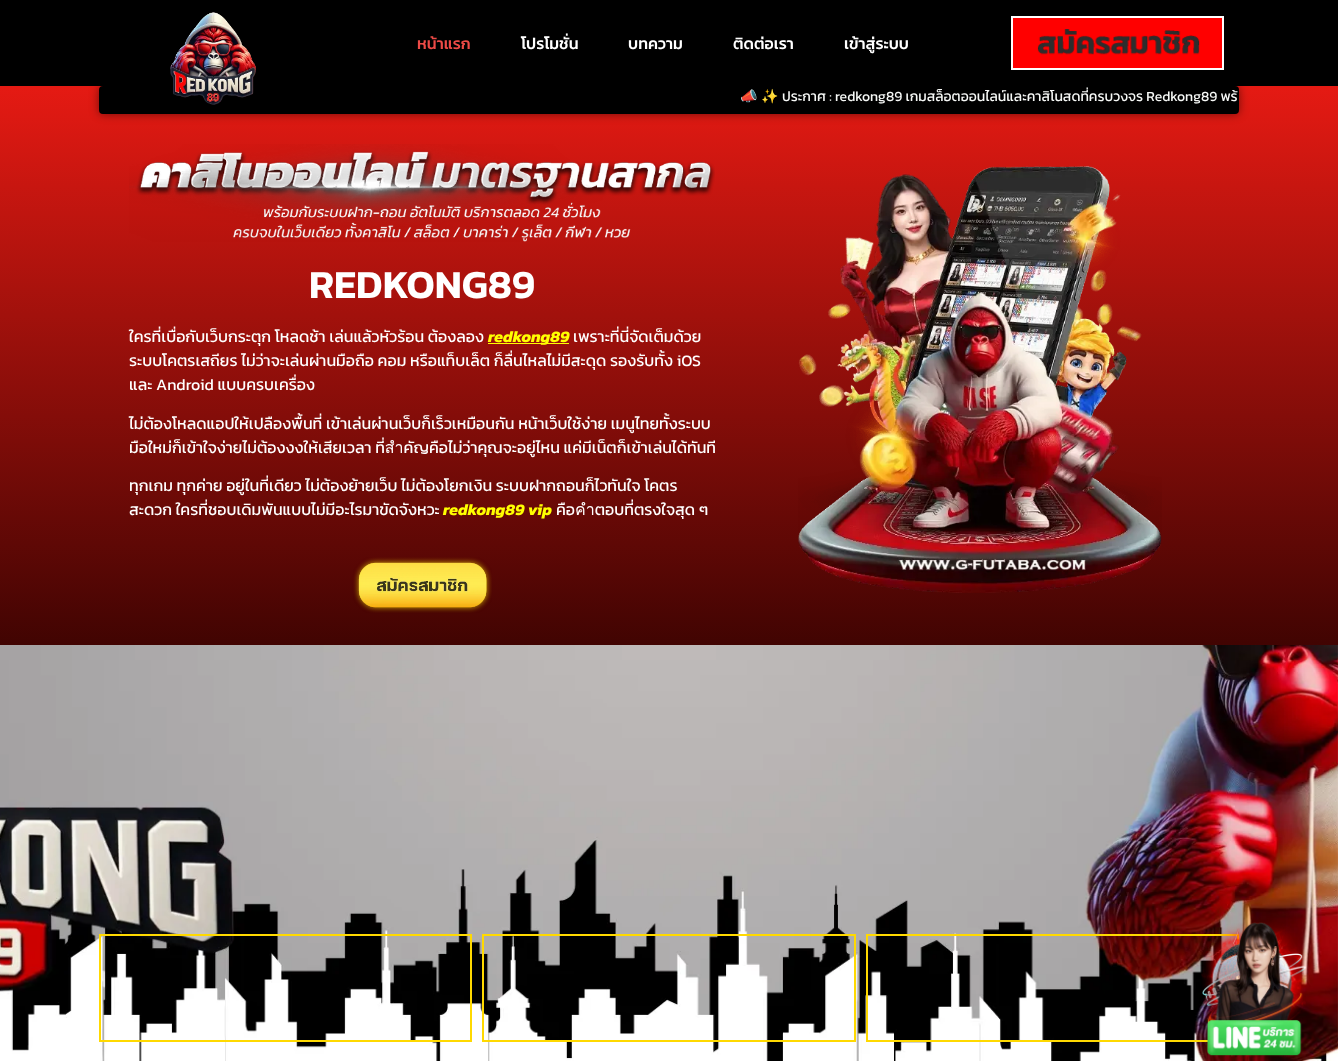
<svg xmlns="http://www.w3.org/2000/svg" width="1338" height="1061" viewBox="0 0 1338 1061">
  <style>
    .t1 { font: 500 16px Kanit; fill: #ed4a46; }
    .t2 { font: 500 16px Kanit; fill: #fff; }
    .t3 { font: 14px Noto Color Emoji; fill: #f7f9f7; }
    .t4 { font: 14px Kanit; fill: #f7f9f7; }
    .t5 { font: 600 40px Kanit; fill: #fff; }
    .t6 { font: 16px Kanit; fill: #fff; }
    .t7 { font: italic bold 16px Kanit; fill: #ff0; }
  </style>
  <defs>
    <linearGradient id="g1" gradientUnits="userSpaceOnUse" x1="669" y1="86" x2="669" y2="645"><stop offset="0" stop-color="#e51a13"/><stop offset="1" stop-color="#410402"/></linearGradient>
  </defs>
  <rect width="100%" height="100%" fill="#fff"/>
  <rect x="0" y="86" width="1338" height="559" fill="url(#g1)"/>
  <rect x="99" y="86" width="1140" height="28" rx="4" fill="#00000080" filter="blur(5px)"/>
  <rect x="0" y="0" width="1338" height="86" fill="#000"/>
  <rect x="99" y="86" width="1140" height="28" rx="4" fill="#000"/>
  <image x="170" y="12" width="86" height="93" href="images/1.png"/>
  <text x="417" y="49" class="t1">หน้าแรก</text>
  <text x="521" y="49" class="t2">โปรโมชั่น</text>
  <text x="628" y="49" class="t2">บทความ</text>
  <text x="733" y="49" class="t2">ติดต่อเรา</text>
  <text x="844" y="49" class="t2">เข้าสู่ระบบ</text>
  <rect x="1012" y="17" width="211" height="52" fill="#f00" stroke="#fff" stroke-width="2"/>
  <image x="1037" y="29" width="163" height="26" href="images/2.png"/>
  <text x="740" y="101" class="t3">📣</text>
  <text x="761" y="101" class="t3">✨</text>
  <text x="782" y="101" class="t4">ประกาศ : redkong89 เกมสล็อตออนไลน์และคาสิโนสดที่ครบวงจร Redkong89 พร้</text>
  <image x="129" y="144" width="586" height="98" href="images/3.png"/>
  <text x="309" y="298" class="t5">REDKONG89</text>
  <text x="129" y="342" class="t6">ใครที่เบื่อกับเว็บกระตุก โหลดช้า เล่นแล้วหัวร้อน ต้องลอง</text>
  <rect x="488" y="343" width="81" height="1" fill="#ff0"/>
  <text x="488" y="342" class="t7">redkong89</text>
  <text x="573" y="342" class="t6">เพราะที่นี่จัดเต็มด้วย</text>
  <text x="129" y="366" class="t6">ระบบโคตรเสถียร ไม่ว่าจะเล่นผ่านมือถือ คอม หรือแท็บเล็ต ก็ลื่นไหลไม่มีสะดุด รองรับทั้ง iOS</text>
  <text x="129" y="390" class="t6">และ Android แบบครบเครื่อง</text>
  <text x="129" y="429" class="t6">ไม่ต้องโหลดแอปให้เปลืองพื้นที่ เข้าเล่นผ่านเว็บก็เร็วเหมือนกัน หน้าเว็บใช้ง่าย เมนูไทยทั้งระบบ</text>
  <text x="129" y="453" class="t6">มือใหม่ก็เข้าใจง่ายไม่ต้องงงให้เสียเวลา ที่สำคัญคือไม่ว่าคุณจะอยู่ไหน แค่มีเน็ตก็เข้าเล่นได้ทันที</text>
  <text x="129" y="491" class="t6">ทุกเกม ทุกค่าย อยู่ในที่เดียว ไม่ต้องย้ายเว็บ ไม่ต้องโยกเงิน ระบบฝากถอนก็ไวทันใจ โคตร</text>
  <text x="129" y="515" class="t6">สะดวก ใครที่ชอบเดิมพันแบบไม่มีอะไรมาขัดจังหวะ</text>
  <text x="443" y="515" class="t7">redkong89 vip</text>
  <text x="556" y="515" class="t6">คือคำตอบที่ตรงใจสุด ๆ</text>
  <image x="353" y="557" width="139" height="56" href="images/4.png"/>
  <image x="798" y="166" width="364" height="427" href="images/5.png"/>
  <image x="0" y="645" width="1338" height="416" href="images/6.png"/>
  <rect x="100" y="935" width="371" height="106" fill="none" stroke="#ffd900" stroke-width="2"/>
  <rect x="483" y="935" width="372" height="106" fill="none" stroke="#ffd900" stroke-width="2"/>
  <rect x="867" y="935" width="371" height="106" fill="none" stroke="#ffd900" stroke-width="2"/>
  <image x="1201" y="922" width="106" height="134" href="images/7.png"/>
</svg>
